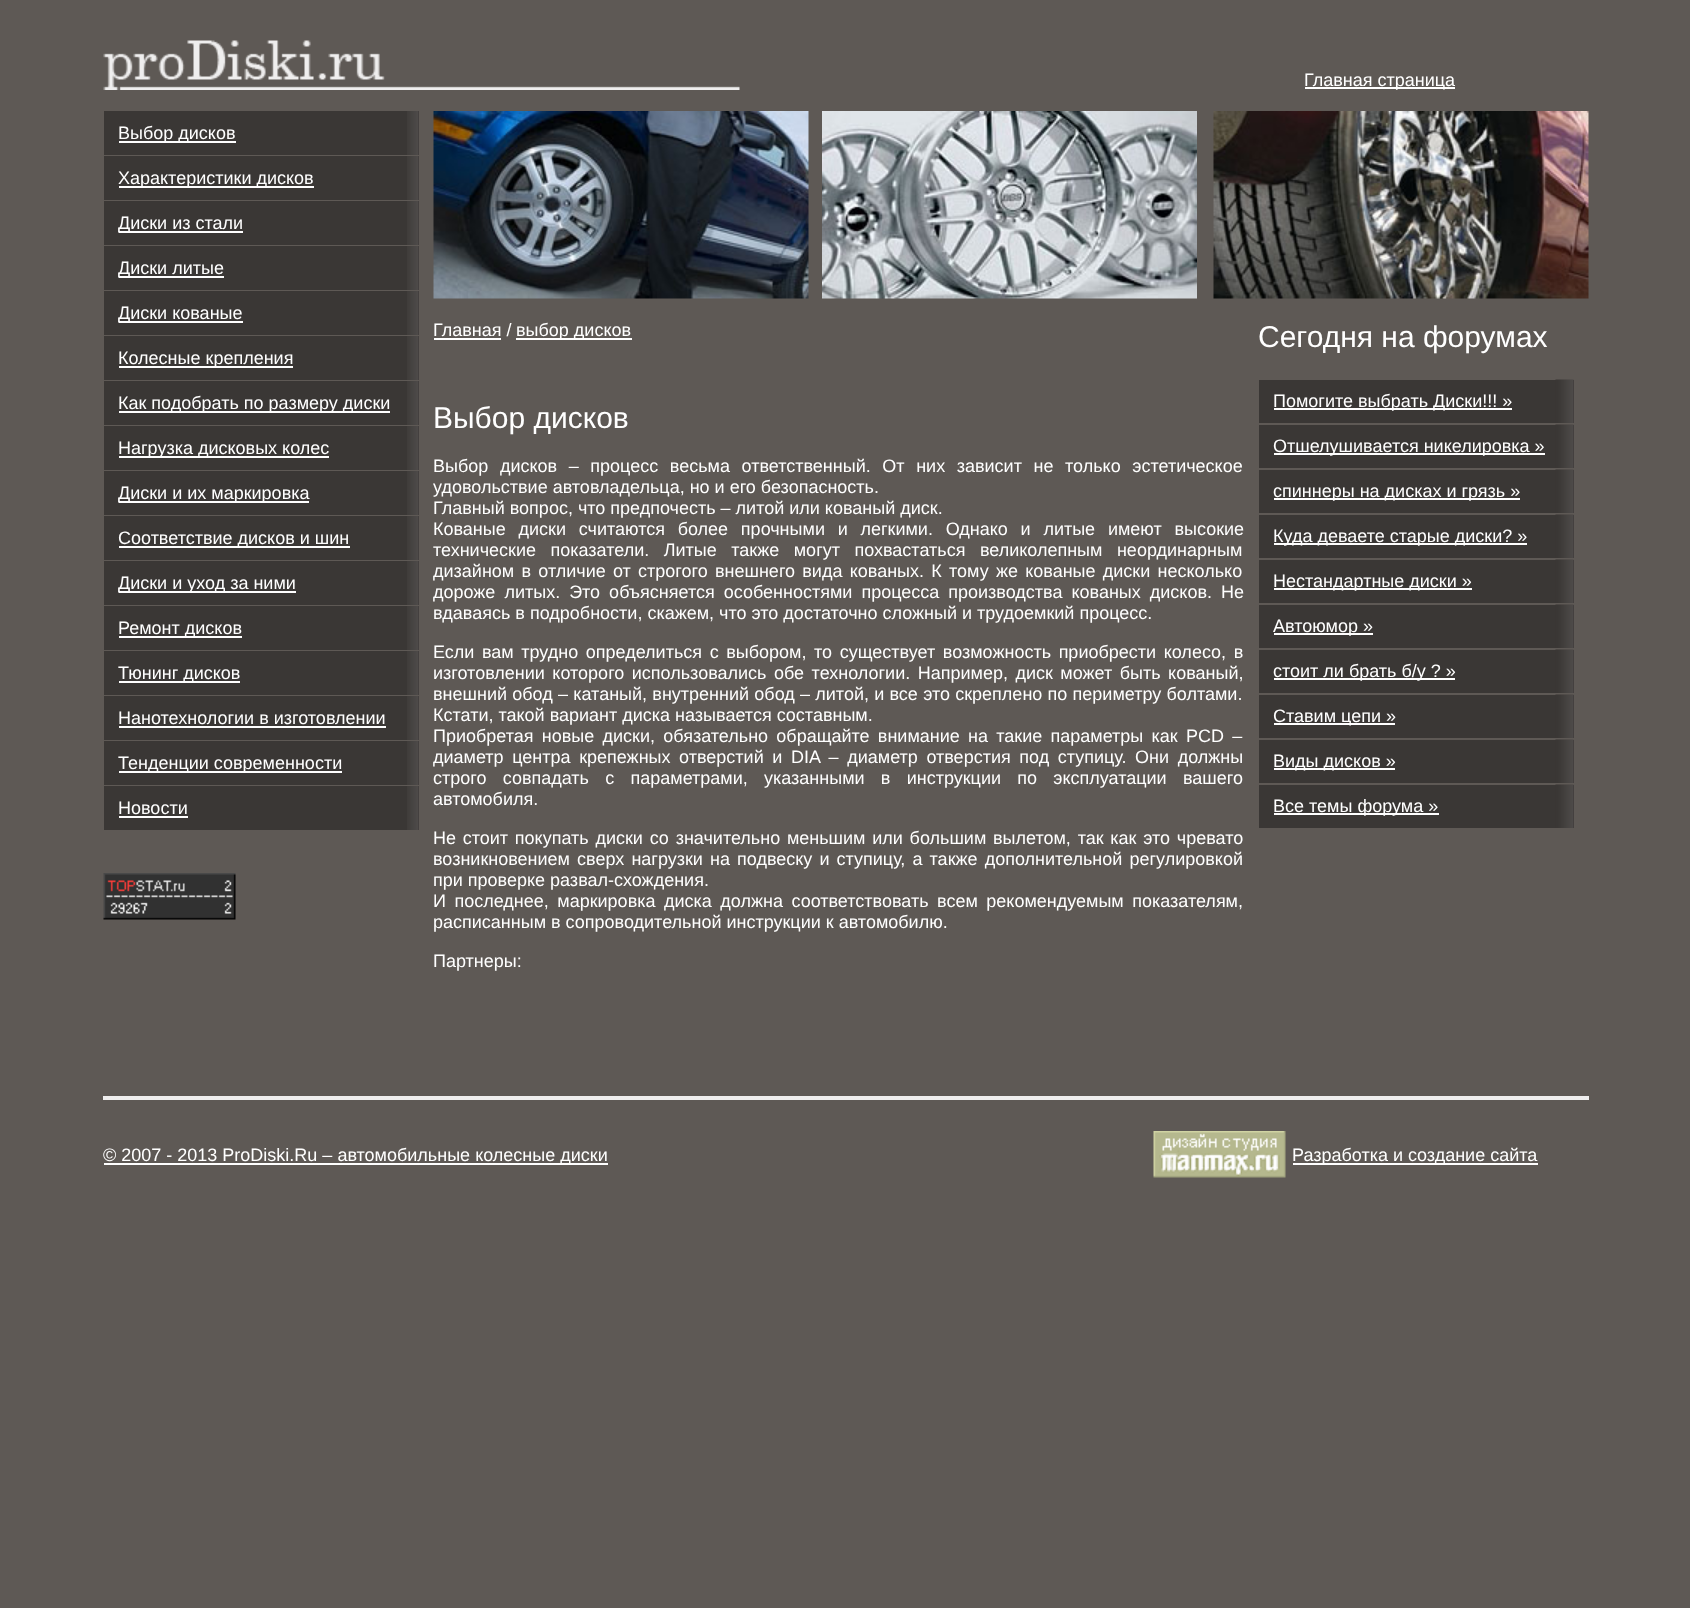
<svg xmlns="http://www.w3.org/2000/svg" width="1690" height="1608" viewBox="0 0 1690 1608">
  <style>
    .t1 { font: 18px Liberation Sans; fill: #fff; }
    .t2 { font: 30px Liberation Sans; fill: #fff; }
  </style>
  <rect width="100%" height="100%" fill="#5e5955"/>
  <image x="103" y="40" width="637" height="50" href="images/1.png"/>
  <rect x="1305" y="87" width="150" height="2" fill="#fff"/>
  <text x="1304" y="86" class="t1">Главная страница</text>
  <rect x="104" y="111" width="315" height="44" fill="#3a3735"/>
  <image x="407" y="111" width="12" height="44" href="images/2.png"/>
  <rect x="119" y="141" width="117" height="2" fill="#fff"/>
  <text x="118" y="139" class="t1">Выбор дисков</text>
  <rect x="104" y="156" width="315" height="44" fill="#3a3735"/>
  <image x="407" y="156" width="12" height="44" href="images/2.png"/>
  <rect x="119" y="186" width="195" height="2" fill="#fff"/>
  <text x="118" y="184" class="t1">Характеристики дисков</text>
  <rect x="104" y="201" width="315" height="44" fill="#3a3735"/>
  <image x="407" y="201" width="12" height="44" href="images/2.png"/>
  <rect x="119" y="231" width="124" height="2" fill="#fff"/>
  <text x="118" y="229" class="t1">Диски из стали</text>
  <rect x="104" y="246" width="315" height="44" fill="#3a3735"/>
  <image x="407" y="246" width="12" height="44" href="images/2.png"/>
  <rect x="119" y="276" width="105" height="2" fill="#fff"/>
  <text x="118" y="274" class="t1">Диски литые</text>
  <rect x="104" y="291" width="315" height="44" fill="#3a3735"/>
  <image x="407" y="291" width="12" height="44" href="images/2.png"/>
  <rect x="119" y="321" width="124" height="2" fill="#fff"/>
  <text x="118" y="319" class="t1">Диски кованые</text>
  <rect x="104" y="336" width="315" height="44" fill="#3a3735"/>
  <image x="407" y="336" width="12" height="44" href="images/2.png"/>
  <rect x="119" y="366" width="174" height="2" fill="#fff"/>
  <text x="118" y="364" class="t1">Колесные крепления</text>
  <rect x="104" y="381" width="315" height="44" fill="#3a3735"/>
  <image x="407" y="381" width="12" height="44" href="images/2.png"/>
  <rect x="119" y="411" width="271" height="2" fill="#fff"/>
  <text x="118" y="409" class="t1">Как подобрать по размеру диски</text>
  <rect x="104" y="426" width="315" height="44" fill="#3a3735"/>
  <image x="407" y="426" width="12" height="44" href="images/2.png"/>
  <rect x="119" y="456" width="210" height="2" fill="#fff"/>
  <text x="118" y="454" class="t1">Нагрузка дисковых колес</text>
  <rect x="104" y="471" width="315" height="44" fill="#3a3735"/>
  <image x="407" y="471" width="12" height="44" href="images/2.png"/>
  <rect x="119" y="501" width="190" height="2" fill="#fff"/>
  <text x="118" y="499" class="t1">Диски и их маркировка</text>
  <rect x="104" y="516" width="315" height="44" fill="#3a3735"/>
  <image x="407" y="516" width="12" height="44" href="images/2.png"/>
  <rect x="119" y="546" width="231" height="2" fill="#fff"/>
  <text x="118" y="544" class="t1">Соответствие дисков и шин</text>
  <rect x="104" y="561" width="315" height="44" fill="#3a3735"/>
  <image x="407" y="561" width="12" height="44" href="images/2.png"/>
  <rect x="119" y="591" width="177" height="2" fill="#fff"/>
  <text x="118" y="589" class="t1">Диски и уход за ними</text>
  <rect x="104" y="606" width="315" height="44" fill="#3a3735"/>
  <image x="407" y="606" width="12" height="44" href="images/2.png"/>
  <rect x="119" y="636" width="123" height="2" fill="#fff"/>
  <text x="118" y="634" class="t1">Ремонт дисков</text>
  <rect x="104" y="651" width="315" height="44" fill="#3a3735"/>
  <image x="407" y="651" width="12" height="44" href="images/2.png"/>
  <rect x="119" y="681" width="121" height="2" fill="#fff"/>
  <text x="118" y="679" class="t1">Тюнинг дисков</text>
  <rect x="104" y="696" width="315" height="44" fill="#3a3735"/>
  <image x="407" y="696" width="12" height="44" href="images/2.png"/>
  <text x="118" y="724" class="t1">Нанотехнологии в изготовлении</text>
  <rect x="119" y="726" width="267" height="2" fill="#fff"/>
  <rect x="104" y="741" width="315" height="44" fill="#3a3735"/>
  <image x="407" y="741" width="12" height="44" href="images/2.png"/>
  <rect x="119" y="771" width="223" height="2" fill="#fff"/>
  <text x="118" y="769" class="t1">Тенденции современности</text>
  <rect x="104" y="786" width="315" height="44" fill="#3a3735"/>
  <image x="407" y="786" width="12" height="44" href="images/2.png"/>
  <text x="118" y="814" class="t1">Новости</text>
  <rect x="119" y="816" width="69" height="2" fill="#fff"/>
  <image x="103" y="873" width="133" height="47" href="images/3.png"/>
  <image x="433" y="111" width="376" height="188" href="images/4.png"/>
  <image x="822" y="111" width="375" height="188" href="images/5.png"/>
  <image x="1213" y="111" width="376" height="188" href="images/6.png"/>
  <text x="433" y="336" class="t1">Главная /</text>
  <rect x="434" y="338" width="67" height="2" fill="#fff"/>
  <rect x="516" y="338" width="116" height="2" fill="#fff"/>
  <text x="516" y="336" class="t1">выбор дисков</text>
  <text x="433" y="428" class="t2">Выбор дисков</text>
  <text x="433" y="472" word-spacing="6.6" class="t1">Выбор дисков – процесс весьма ответственный. От них зависит не только эстетическое</text>
  <text x="433" y="493" class="t1">удовольствие автовладельца, но и его безопасность.</text>
  <text x="433" y="514" class="t1">Главный вопрос, что предпочесть – литой или кованый диск.</text>
  <text x="433" y="535" word-spacing="7.75" class="t1">Кованые диски считаются более прочными и легкими. Однако и литые имеют высокие</text>
  <text x="433" y="556" word-spacing="9.5" class="t1">технические показатели. Литые также могут похвастаться великолепным неординарным</text>
  <text x="433" y="577" word-spacing="2.25" class="t1">дизайном в отличие от строгого внешнего вида кованых. К тому же кованые диски несколько</text>
  <text x="433" y="598" word-spacing="4" class="t1">дороже литых. Это объясняется особенностями процесса производства кованых дисков. Не</text>
  <text x="433" y="619" class="t1">вдаваясь в подробности, скажем, что это достаточно сложный и трудоемкий процесс.</text>
  <text x="433" y="658" word-spacing="2.6" class="t1">Если вам трудно определиться с выбором, то существует возможность приобрести колесо, в</text>
  <text x="433" y="679" word-spacing="2.5" class="t1">изготовлении которого использовались обе технологии. Например, диск может быть кованый,</text>
  <text x="433" y="700" word-spacing="0.25" class="t1">внешний обод – катаный, внутренний обод – литой, и все это скреплено по периметру болтами.</text>
  <text x="433" y="721" class="t1">Кстати, такой вариант диска называется составным.</text>
  <text x="433" y="742" word-spacing="3.25" class="t1">Приобретая новые диски, обязательно обращайте внимание на такие параметры как PCD –</text>
  <text x="433" y="763" word-spacing="3.6" class="t1">диаметр центра крепежных отверстий и DIA – диаметр отверстия под ступицу. Они должны</text>
  <text x="433" y="784" word-spacing="11.25" class="t1">строго совпадать с параметрами, указанными в инструкции по эксплуатации вашего</text>
  <text x="433" y="805" class="t1">автомобиля.</text>
  <text x="433" y="844" word-spacing="1.75" class="t1">Не стоит покупать диски со значительно меньшим или большим вылетом, так как это чревато</text>
  <text x="433" y="865" word-spacing="2.1" class="t1">возникновением сверх нагрузки на подвеску и ступицу, а также дополнительной регулировкой</text>
  <text x="433" y="886" class="t1">при проверке развал-схождения.</text>
  <text x="433" y="907" word-spacing="3.5" class="t1">И последнее, маркировка диска должна соответствовать всем рекомендуемым показателям,</text>
  <text x="433" y="928" class="t1">расписанным в сопроводительной инструкции к автомобилю.</text>
  <text x="433" y="967" class="t1">Партнеры:</text>
  <text x="1258" y="347" class="t2">Сегодня на форумах</text>
  <rect x="1259" y="380" width="315" height="43" fill="#3a3735"/>
  <image x="1555" y="379" width="19" height="44" href="images/7.png"/>
  <rect x="1274" y="408" width="238" height="2" fill="#fff"/>
  <text x="1273" y="407" class="t1">Помогите выбрать Диски!!! »</text>
  <rect x="1259" y="425" width="315" height="43" fill="#3a3735"/>
  <image x="1555" y="424" width="19" height="44" href="images/7.png"/>
  <rect x="1274" y="453" width="271" height="2" fill="#fff"/>
  <text x="1273" y="452" class="t1">Отшелушивается никелировка »</text>
  <rect x="1259" y="470" width="315" height="43" fill="#3a3735"/>
  <image x="1555" y="469" width="19" height="44" href="images/7.png"/>
  <rect x="1274" y="498" width="246" height="2" fill="#fff"/>
  <text x="1273" y="497" class="t1">спиннеры на дисках и грязь »</text>
  <rect x="1259" y="515" width="315" height="43" fill="#3a3735"/>
  <image x="1555" y="514" width="19" height="44" href="images/7.png"/>
  <rect x="1274" y="543" width="253" height="2" fill="#fff"/>
  <text x="1273" y="542" class="t1">Куда деваете старые диски? »</text>
  <rect x="1259" y="560" width="315" height="43" fill="#3a3735"/>
  <image x="1555" y="559" width="19" height="44" href="images/7.png"/>
  <rect x="1274" y="588" width="198" height="2" fill="#fff"/>
  <text x="1273" y="587" class="t1">Нестандартные диски »</text>
  <rect x="1259" y="605" width="315" height="43" fill="#3a3735"/>
  <image x="1555" y="604" width="19" height="44" href="images/7.png"/>
  <rect x="1274" y="633" width="99" height="2" fill="#fff"/>
  <text x="1273" y="632" class="t1">Автоюмор »</text>
  <rect x="1259" y="650" width="315" height="43" fill="#3a3735"/>
  <image x="1555" y="649" width="19" height="44" href="images/7.png"/>
  <rect x="1274" y="678" width="181" height="2" fill="#fff"/>
  <text x="1273" y="677" class="t1">стоит ли брать б/у ? »</text>
  <rect x="1259" y="695" width="315" height="43" fill="#3a3735"/>
  <image x="1555" y="694" width="19" height="44" href="images/7.png"/>
  <rect x="1274" y="723" width="121" height="2" fill="#fff"/>
  <text x="1273" y="722" class="t1">Ставим цепи »</text>
  <rect x="1259" y="740" width="315" height="43" fill="#3a3735"/>
  <image x="1555" y="739" width="19" height="44" href="images/7.png"/>
  <rect x="1274" y="768" width="121" height="2" fill="#fff"/>
  <text x="1273" y="767" class="t1">Виды дисков »</text>
  <rect x="1259" y="785" width="315" height="43" fill="#3a3735"/>
  <image x="1555" y="784" width="19" height="44" href="images/7.png"/>
  <rect x="1274" y="813" width="165" height="2" fill="#fff"/>
  <text x="1273" y="812" class="t1">Все темы форума »</text>
  <rect x="103" y="1096" width="1486" height="4" fill="#efeeee"/>
  <rect x="104" y="1163" width="504" height="2" fill="#fff"/>
  <text x="103" y="1161" class="t1">© 2007 - 2013 ProDiski.Ru – автомобильные колесные диски</text>
  <image x="1153" y="1131" width="133" height="47" href="images/8.png"/>
  <rect x="1293" y="1163" width="245" height="2" fill="#fff"/>
  <text x="1292" y="1161" class="t1">Разработка и cоздание сайта</text>
</svg>
